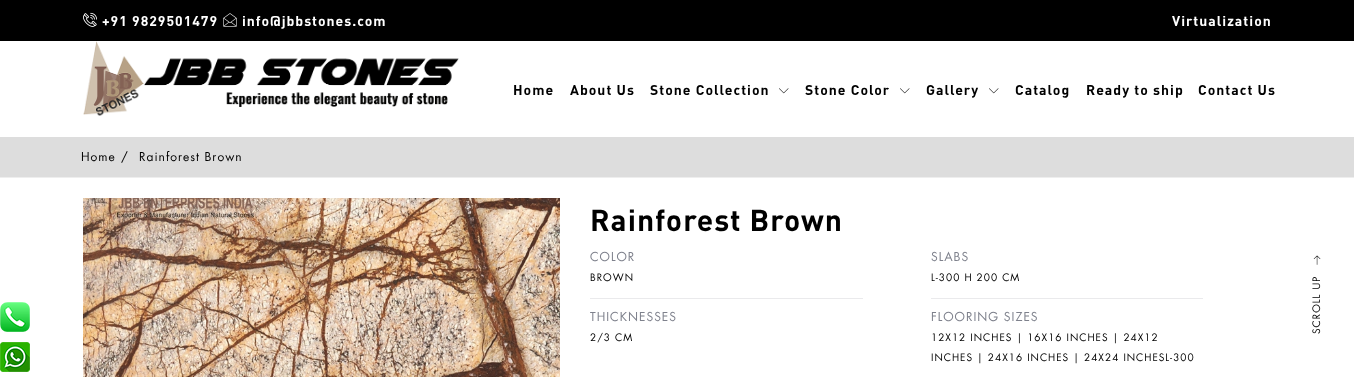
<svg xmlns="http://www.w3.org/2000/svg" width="1354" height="377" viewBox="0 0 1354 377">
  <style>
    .t1 { font: bold 14px DIN; letter-spacing: 1px; fill: #fff; }
    .t2 { font: bold 14px DIN; letter-spacing: 1px; fill: #000; }
    .t3 { font: 12px Futura; letter-spacing: 1px; fill: #000; }
    .t4 { font: bold 30px DIN; letter-spacing: 1px; fill: #000; }
    .t5 { font: 12px Futura; letter-spacing: 1px; fill: #7e818c; }
    .t6 { font: 10px Futura; letter-spacing: 1px; fill: #000; }
  </style>
  <rect width="100%" height="100%" fill="#000"/>
  <image x="83" y="12" width="14" height="15" href="images/1.png"/>
  <text x="102" y="26" class="t1">+91 9829501479</text>
  <image x="223" y="13" width="14" height="14" href="images/2.png"/>
  <text x="242" y="26" class="t1">info@jbbstones.com</text>
  <text x="1172" y="26" class="t1">Virtualization</text>
  <rect x="0" y="41" width="1354" height="96" fill="#fff"/>
  <image x="83" y="41" width="376" height="75" href="images/3.png"/>
  <text x="513" y="95" class="t2">Home</text>
  <text x="570" y="95" class="t2">About Us</text>
  <text x="650" y="95" class="t2">Stone Collection</text>
  <image x="779" y="88" width="10" height="6" href="images/4.png"/>
  <text x="805" y="95" class="t2">Stone Color</text>
  <image x="900" y="88" width="10" height="6" href="images/4.png"/>
  <text x="926" y="95" class="t2">Gallery</text>
  <image x="989" y="88" width="10" height="6" href="images/4.png"/>
  <text x="1015" y="95" class="t2">Catalog</text>
  <text x="1086" y="95" class="t2">Ready to ship</text>
  <text x="1198" y="95" class="t2">Contact Us</text>
  <rect x="0" y="137" width="1354" height="40" fill="#ddd"/>
  <rect x="0" y="177" width="1354" height="1" fill="#eee"/>
  <text x="81" y="161" class="t3">Home</text>
  <text x="121" y="161" class="t3">/</text>
  <text x="139" y="161" class="t3">Rainforest Brown</text>
  <rect x="0" y="178" width="1354" height="199" fill="#fff"/>
  <image x="0" y="302" width="30" height="30" href="images/5.png"/>
  <image x="0" y="342" width="30" height="30" href="images/6.png"/>
  <image x="83" y="198" width="477" height="179" href="images/7.png"/>
  <text x="590" y="231" class="t4">Rainforest Brown</text>
  <rect x="590" y="298" width="273" height="1" fill="#eaeaec"/>
  <text x="590" y="261" class="t5">COLOR</text>
  <text x="590" y="281" class="t6">BROWN</text>
  <rect x="931" y="298" width="272" height="1" fill="#eaeaec"/>
  <text x="931" y="261" class="t5">SLABS</text>
  <text x="931" y="281" class="t6">L-300 H 200 CM</text>
  <text x="590" y="321" class="t5">THICKNESSES</text>
  <text x="590" y="341" class="t6">2/3 CM</text>
  <text x="931" y="321" class="t5">FLOORING SIZES</text>
  <text x="931" y="341" class="t6">12X12 INCHES | 16X16 INCHES | 24X12</text>
  <text x="931" y="361" class="t6">INCHES | 24X16 INCHES | 24X24 INCHESL-300</text>
  <image x="1313" y="255" width="8" height="10" href="images/8.png"/>
  <text x="1320" y="334" transform="rotate(-90 1320 334)" class="t6">SCROLL UP</text>
</svg>
